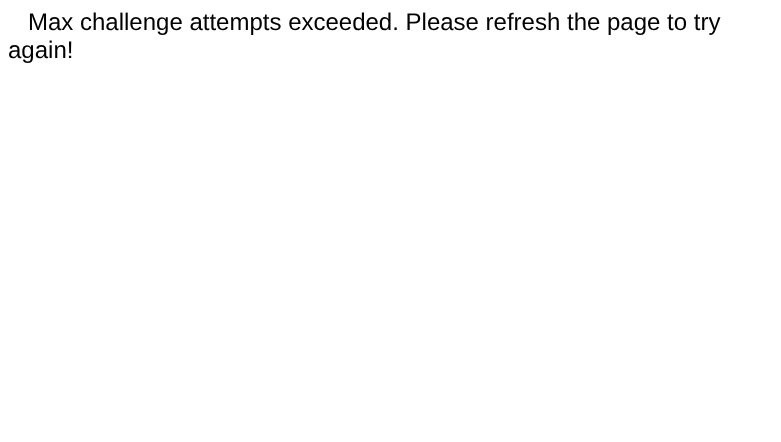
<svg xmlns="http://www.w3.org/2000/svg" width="781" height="442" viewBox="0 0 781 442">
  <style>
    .t1 { font: 24px Liberation Sans; fill: #000; }
  </style>
  <rect width="100%" height="100%" fill="#fff"/>
  <text x="28" y="30" class="t1">Max challenge attempts exceeded. Please refresh the page to try</text>
  <text x="8" y="58" class="t1">again!</text>
</svg>
